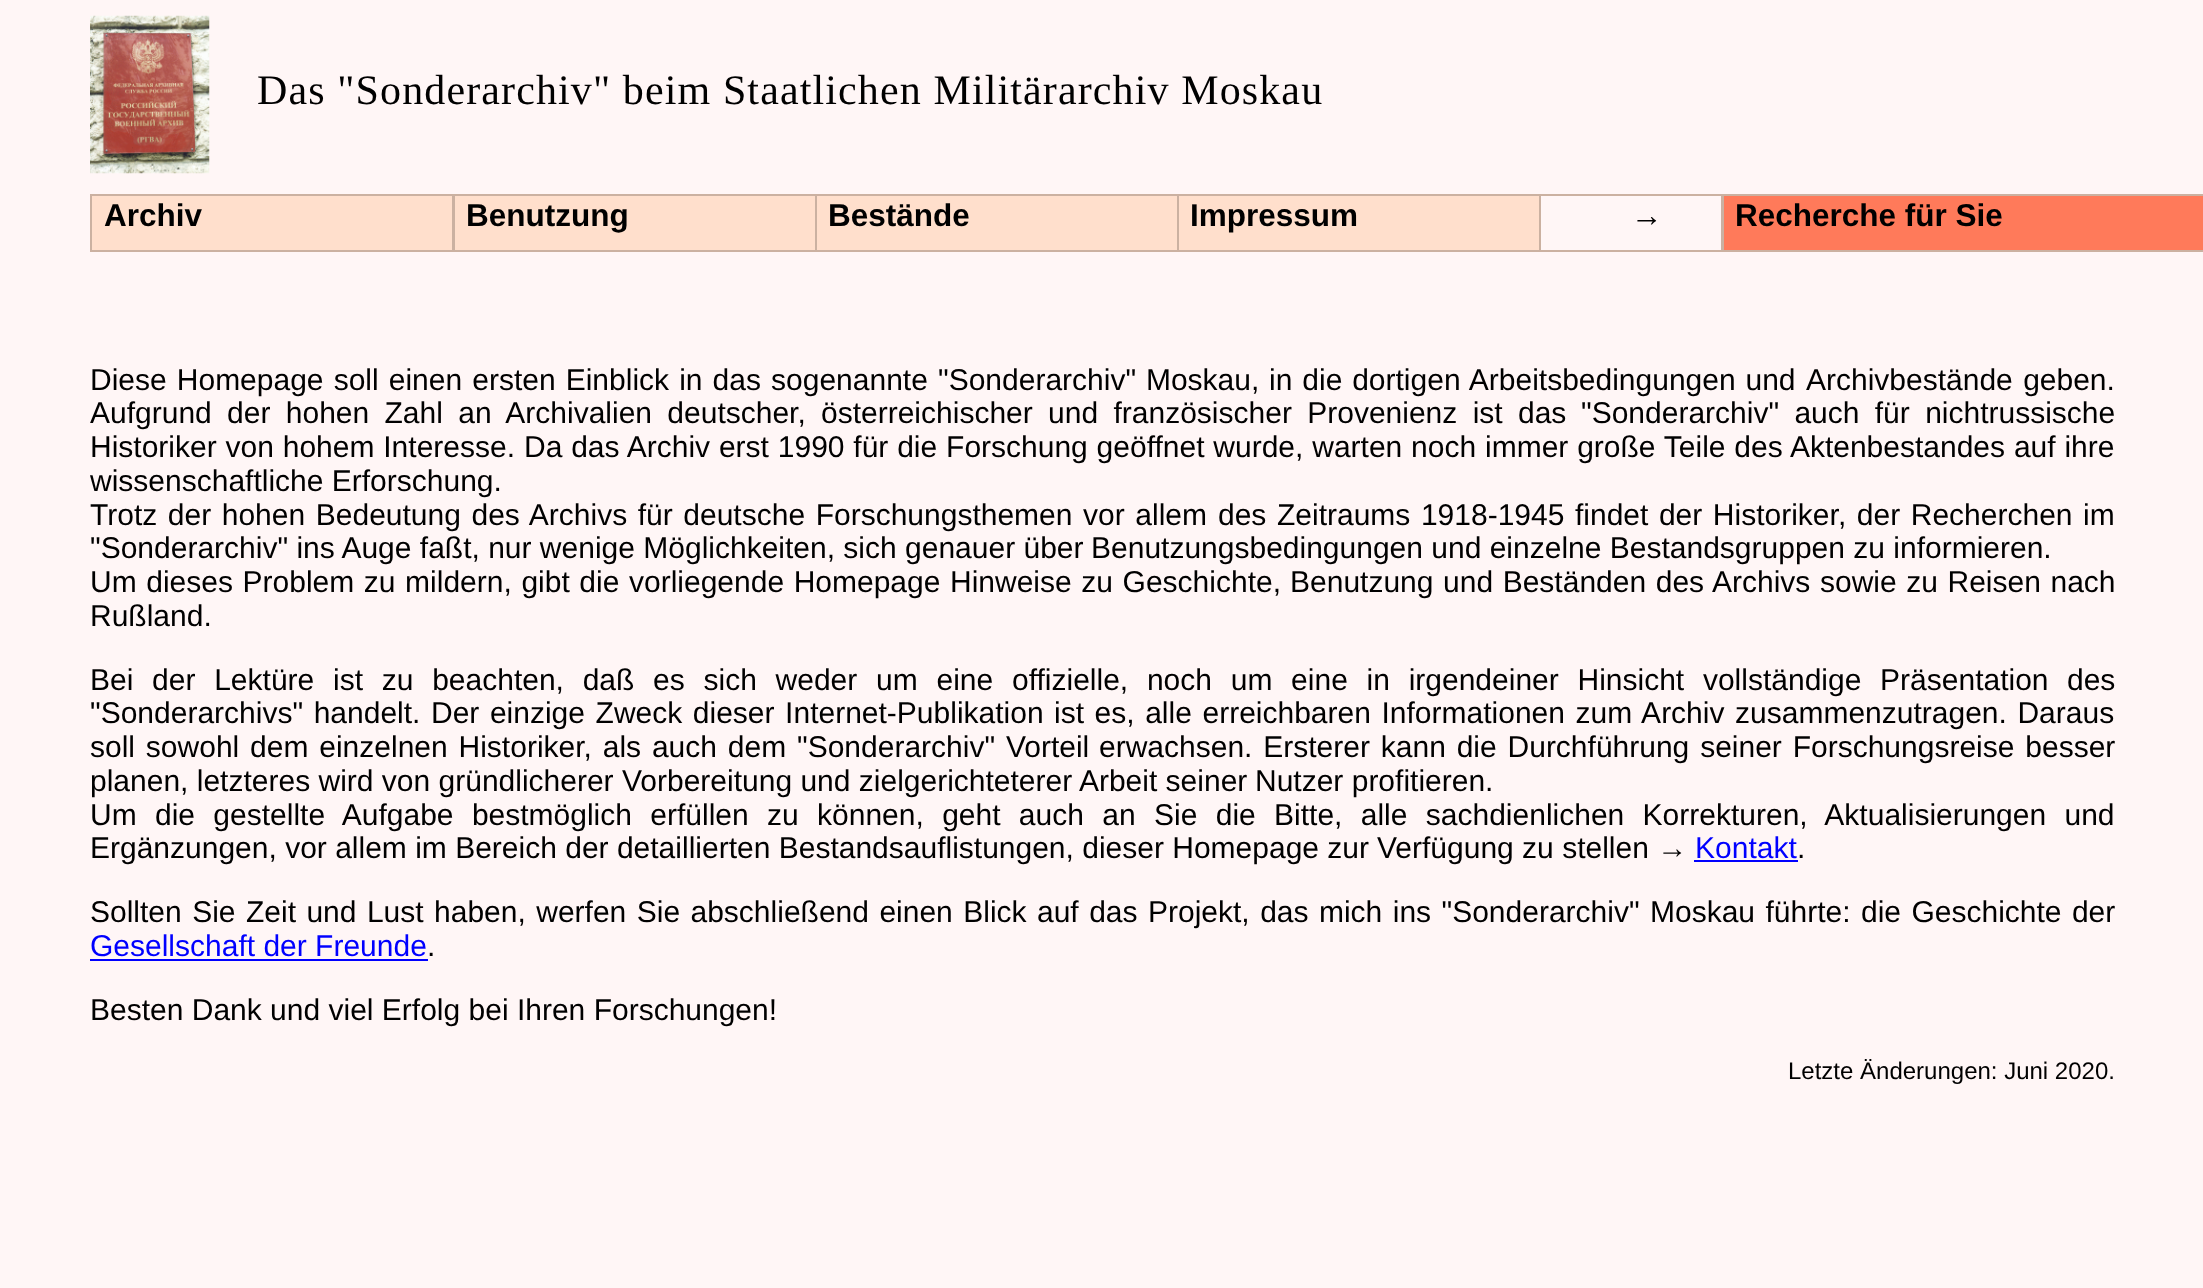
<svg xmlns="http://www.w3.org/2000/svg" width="2203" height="1288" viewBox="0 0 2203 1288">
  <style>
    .t1 { font: 42px Liberation Serif; letter-spacing: 1.12px; fill: #000; }
    .t2 { font: bold 31.5px Liberation Sans; fill: #000; }
    .t3 { font: 30px Liberation Sans; fill: #000; }
    .t4 { font: 30px Liberation Sans; fill: #00f; }
    .t5 { font: 24px Liberation Sans; fill: #000; }
  </style>
  <rect width="100%" height="100%" fill="#fff6f6"/>
  <image x="90" y="15" width="120" height="159" href="images/1.png"/>
  <text x="257" y="104" class="t1">Das "Sonderarchiv" beim Staatlichen Militärarchiv Moskau</text>
  <rect x="90" y="194" width="2113" height="58" fill="#cbb1a1"/>
  <rect x="92" y="196" width="360" height="54" fill="#ffdfcc"/>
  <text x="104" y="226" class="t2">Archiv</text>
  <rect x="455" y="196" width="360" height="54" fill="#ffdfcc"/>
  <text x="466" y="226" class="t2">Benutzung</text>
  <rect x="817" y="196" width="360" height="54" fill="#ffdfcc"/>
  <text x="828" y="226" class="t2">Bestände</text>
  <rect x="1179" y="196" width="360" height="54" fill="#ffdfcc"/>
  <text x="1190" y="226" class="t2">Impressum</text>
  <rect x="1541" y="196" width="180" height="54" fill="#fff6f6"/>
  <text x="1631" y="226" class="t2">→</text>
  <rect x="1724" y="196" width="479" height="54" fill="#ff7a5a"/>
  <text x="1735" y="226" class="t2">Recherche für Sie</text>
  <text x="90" y="390" word-spacing="1.75" class="t3">Diese Homepage soll einen ersten Einblick in das sogenannte</text>
  <text x="938" y="390" word-spacing="1.5" class="t3">"Sonderarchiv" Moskau, in die dortigen Arbeitsbedingungen und</text>
  <text x="1806" y="390" word-spacing="2" class="t3">Archivbestände geben.</text>
  <text x="90" y="423" word-spacing="7" class="t3">Aufgrund der hohen Zahl an Archivalien deutscher,</text>
  <text x="821" y="423" word-spacing="7" class="t3">österreichischer und französischer Provenienz ist das</text>
  <text x="1581" y="423" word-spacing="7" class="t3">"Sonderarchiv" auch für nichtrussische</text>
  <text x="90" y="457" word-spacing="0.5" class="t3">Historiker von hohem Interesse.</text>
  <text x="524" y="457" word-spacing="0.5" class="t3">Da das Archiv erst 1990 für die Forschung geöffnet wurde, warten noch</text>
  <text x="1485" y="457" word-spacing="0.5" class="t3">immer große Teile des Aktenbestandes auf ihre</text>
  <text x="90" y="491" class="t3">wissenschaftliche Erforschung.</text>
  <text x="90" y="525" word-spacing="2.25" class="t3">Trotz der hohen Bedeutung des Archivs für deutsche Forschungsthemen vor allem</text>
  <text x="1218" y="525" word-spacing="2.25" class="t3">des Zeitraums 1918-1945 findet der Historiker, der Recherchen im</text>
  <text x="90" y="558" class="t3">"Sonderarchiv" ins Auge faßt, nur wenige Möglichkeiten, sich genauer über</text>
  <text x="1091" y="558" class="t3">Benutzungsbedingungen und einzelne Bestandsgruppen zu informieren.</text>
  <text x="90" y="592" word-spacing="1.25" class="t3">Um dieses Problem zu mildern, gibt die vorliegende Homepage Hinweise zu Geschichte,</text>
  <text x="1290" y="592" word-spacing="1.25" class="t3">Benutzung und Beständen des Archivs sowie zu Reisen nach</text>
  <text x="90" y="626" class="t3">Rußland.</text>
  <text x="90" y="690" word-spacing="10.4" class="t3">Bei der Lektüre ist zu beachten, daß es sich weder um eine</text>
  <text x="1012" y="690" word-spacing="10.4" class="t3">offizielle, noch um eine in irgendeiner Hinsicht vollständige Präsentation</text>
  <text x="2067" y="690" class="t3">des</text>
  <text x="90" y="723" word-spacing="2.25" class="t3">"Sonderarchivs" handelt. Der einzige Zweck dieser Internet-Publikation</text>
  <text x="1054" y="723" word-spacing="2.25" class="t3">ist es, alle erreichbaren Informationen zum Archiv zusammenzutragen. Daraus</text>
  <text x="90" y="757" word-spacing="2.5" class="t3">soll sowohl dem einzelnen Historiker, als auch dem "Sonderarchiv" Vorteil</text>
  <text x="1099" y="757" word-spacing="2.5" class="t3">erwachsen. Ersterer kann die Durchführung seiner Forschungsreise besser</text>
  <text x="90" y="791" class="t3">planen, letzteres wird von gründlicherer Vorbereitung und zielgerichteterer Arbeit seiner</text>
  <text x="1255" y="791" class="t3">Nutzer profitieren.</text>
  <text x="90" y="825" word-spacing="10" class="t3">Um die gestellte Aufgabe bestmöglich erfüllen zu können, geht auch an</text>
  <text x="1154" y="825" word-spacing="10" class="t3">Sie die Bitte, alle sachdienlichen Korrekturen, Aktualisierungen und</text>
  <text x="90" y="858" class="t3">Ergänzungen, vor allem im Bereich der detaillierten Bestandsauflistungen, dieser Homepage zur</text>
  <text x="1377" y="858" class="t3">Verfügung zu stellen →</text>
  <text x="1695" y="858" class="t4">Kontakt</text>
  <rect x="1694" y="860" width="104" height="2" fill="#00f"/>
  <text x="1797" y="858" class="t3">.</text>
  <text x="90" y="922" word-spacing="2.1" class="t3">Sollten Sie Zeit und Lust haben, werfen Sie abschließend einen Blick auf das</text>
  <text x="1148" y="922" word-spacing="2.1" class="t3">Projekt, das mich ins "Sonderarchiv" Moskau führte: die Geschichte der</text>
  <text x="90" y="956" class="t4">Gesellschaft der Freunde</text>
  <rect x="90" y="959" width="338" height="2" fill="#00f"/>
  <text x="427" y="956" class="t3">.</text>
  <text x="90" y="1020" class="t3">Besten Dank und viel Erfolg bei Ihren Forschungen!</text>
  <text x="1788" y="1079" class="t5">Letzte Änderungen: Juni 2020.</text>
</svg>
